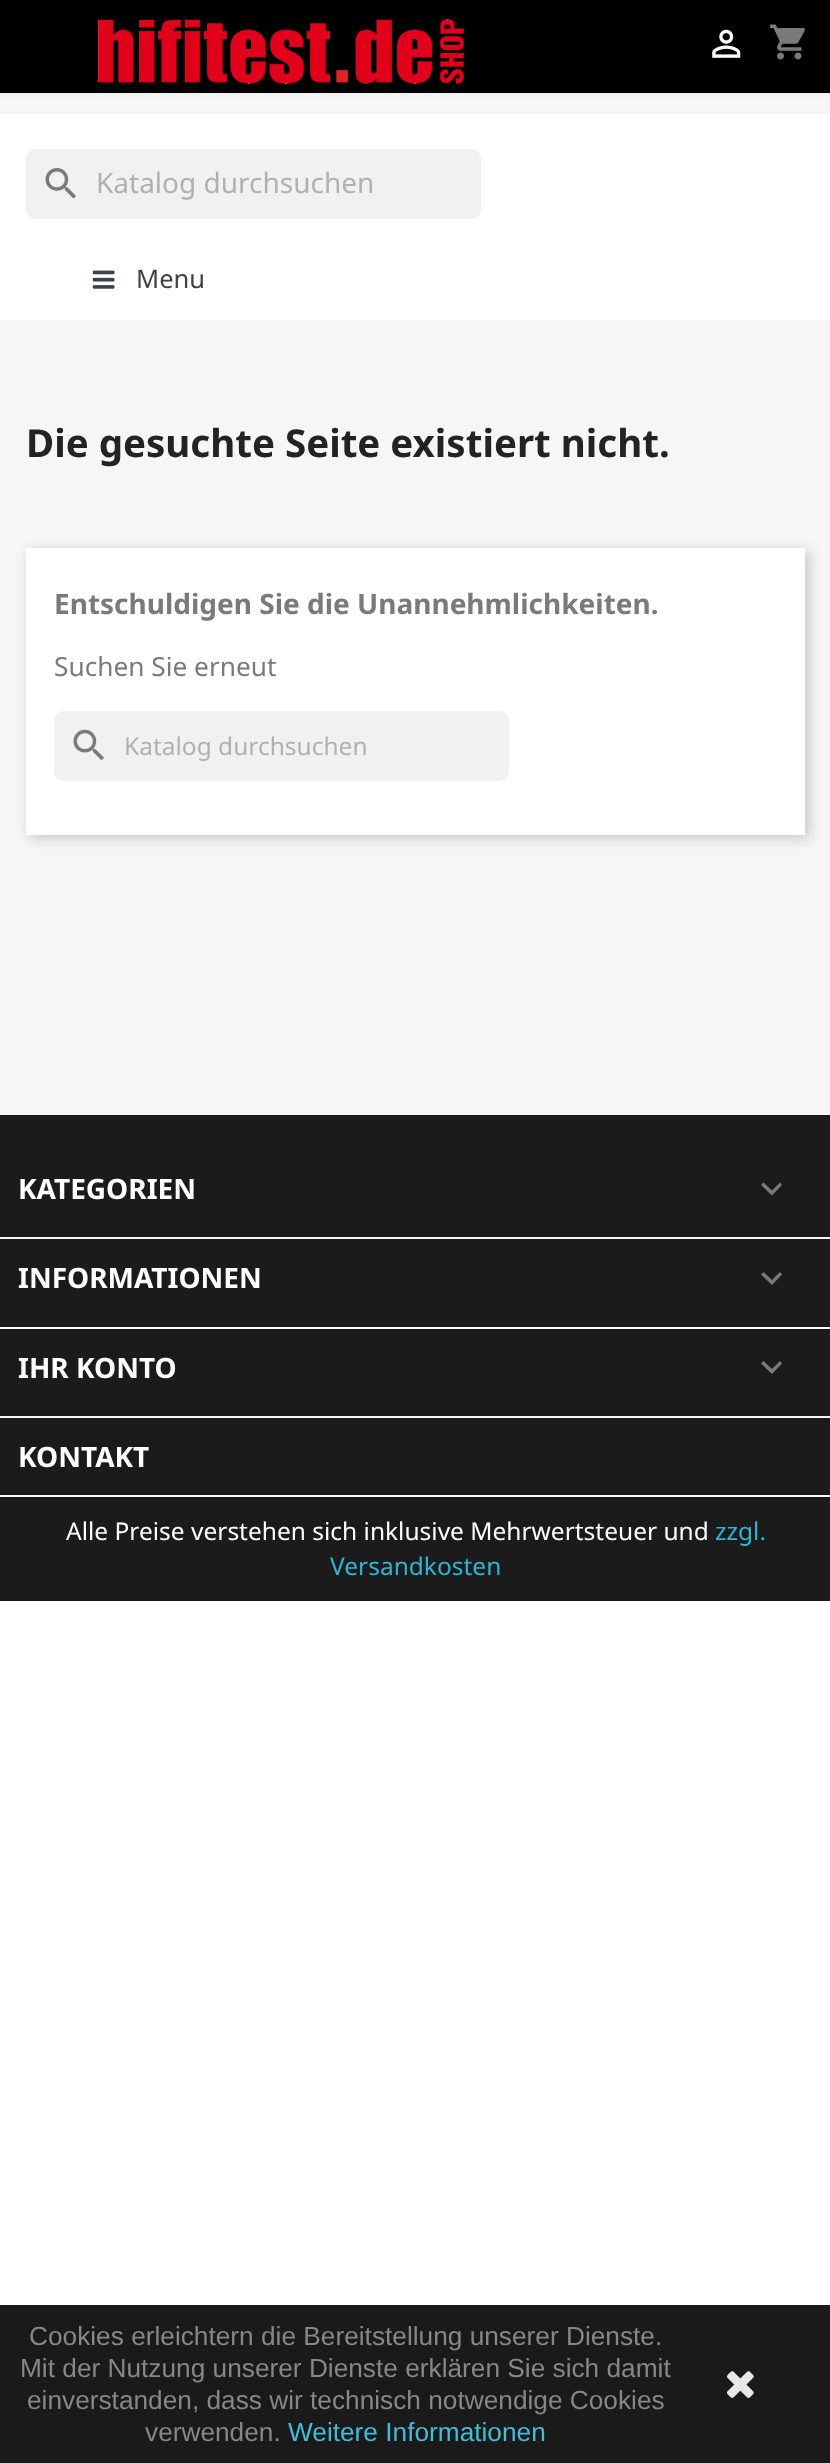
<svg xmlns="http://www.w3.org/2000/svg" width="830" height="2463" viewBox="0 0 830 2463">
  <style>
    .t1 { font: 28px Noto Sans; fill: #b1b1b1; }
    .t2 { font: 25.5px Noto Sans; fill: #3d4246; }
    .t3 { font: bold 38.5px Noto Sans; fill: #232323; }
    .t4 { font: bold 28px Noto Sans; fill: #7a7a7a; }
    .t5 { font: 26.25px Noto Sans; fill: #7a7a7a; }
    .t6 { font: 24.5px Noto Sans; fill: #b1b1b1; }
    .t7 { font: bold 28px Noto Sans; fill: #fff; }
    .t8 { font: 26.25px Liberation Sans; fill: #878787; }
    .t9 { font: 26.25px Liberation Sans; fill: #44bcd7; }
    .t10 { font: 24.5px Noto Sans; fill: #fff; }
    .t11 { font: 24.5px Noto Sans; fill: #2fb5d2; }
  </style>
  <rect width="100%" height="100%" fill="#fff"/>
  <rect x="0" y="97" width="830" height="17" fill="#f6f6f6"/>
  <rect x="0" y="0" width="830" height="93" fill="#000"/>
  <rect x="0" y="93" width="830" height="4" fill="#f1f1f1"/>
  <image x="98" y="19" width="366" height="65" href="images/1.png"/>
  <image x="712" y="29" width="29" height="29" href="images/2.png"/>
  <image x="770" y="24" width="35" height="36" href="images/3.png"/>
  <rect x="26" y="149" width="455" height="70" rx="9" fill="#f1f1f1"/>
  <image x="45" y="168" width="31" height="31" href="images/4.png"/>
  <text x="96" y="193" class="t1">Katalog durchsuchen</text>
  <image x="92" y="270" width="23" height="19" href="images/5.png"/>
  <text x="136" y="288" class="t2">Menu</text>
  <rect x="0" y="320" width="830" height="795" fill="#f6f6f6"/>
  <text x="26" y="457" class="t3">Die gesuchte Seite existiert nicht.</text>
  <rect x="30" y="551" width="779" height="287" fill="#00000033" filter="blur(7px)"/>
  <rect x="26" y="548" width="779" height="287" fill="#fff"/>
  <text x="54" y="614" class="t4">Entschuldigen Sie die Unannehmlichkeiten.</text>
  <text x="54" y="676" class="t5">Suchen Sie erneut</text>
  <rect x="54" y="711" width="455" height="70" rx="9" fill="#f1f1f1"/>
  <image x="73" y="729" width="31" height="32" href="images/6.png"/>
  <text x="124" y="755" class="t6">Katalog durchsuchen</text>
  <rect x="0" y="1115" width="830" height="486" fill="#1b1b1b"/>
  <rect x="0" y="1237" width="830" height="2" fill="#f6f6f6"/>
  <text x="18" y="1199" class="t7">KATEGORIEN</text>
  <path d="M763.5 1182.5L772 1190.5L780 1182.5L782 1185L772 1195.5L761 1185Z" fill="#7a7a7a"/>
  <rect x="0" y="1327" width="830" height="2" fill="#f6f6f6"/>
  <text x="18" y="1288" class="t7">INFORMATIONEN</text>
  <path d="M763.5 1272L772 1280L780 1272L782 1274.5L772 1285L761 1274.5Z" fill="#7a7a7a"/>
  <rect x="0" y="1416" width="830" height="2" fill="#f6f6f6"/>
  <text x="18" y="1378" class="t7">IHR KONTO</text>
  <path d="M763.5 1361L772 1369L780 1361L782 1363.5L772 1374L761 1363.5Z" fill="#7a7a7a"/>
  <rect x="0" y="1495" width="830" height="2" fill="#f6f6f6"/>
  <text x="18" y="1467" class="t7">KONTAKT</text>
  <rect x="0" y="2305" width="830" height="158" fill="#1a1a1a"/>
  <text x="29" y="2345" class="t8">Cookies erleichtern die Bereitstellung unserer Dienste.</text>
  <text x="20" y="2377" class="t8">Mit der Nutzung unserer Dienste erklären Sie sich damit</text>
  <text x="27" y="2409" class="t8">einverstanden, dass wir technisch notwendige Cookies</text>
  <text x="145" y="2441" class="t8">verwenden.</text>
  <text x="288" y="2441" class="t9">Weitere Informationen</text>
  <image x="727" y="2371" width="27" height="27" href="images/7.png"/>
  <text x="66" y="1540" class="t10">Alle Preise verstehen sich inklusive Mehrwertsteuer und</text>
  <text x="715" y="1540" class="t11">zzgl.</text>
  <text x="330" y="1575" class="t11">Versandkosten</text>
</svg>
